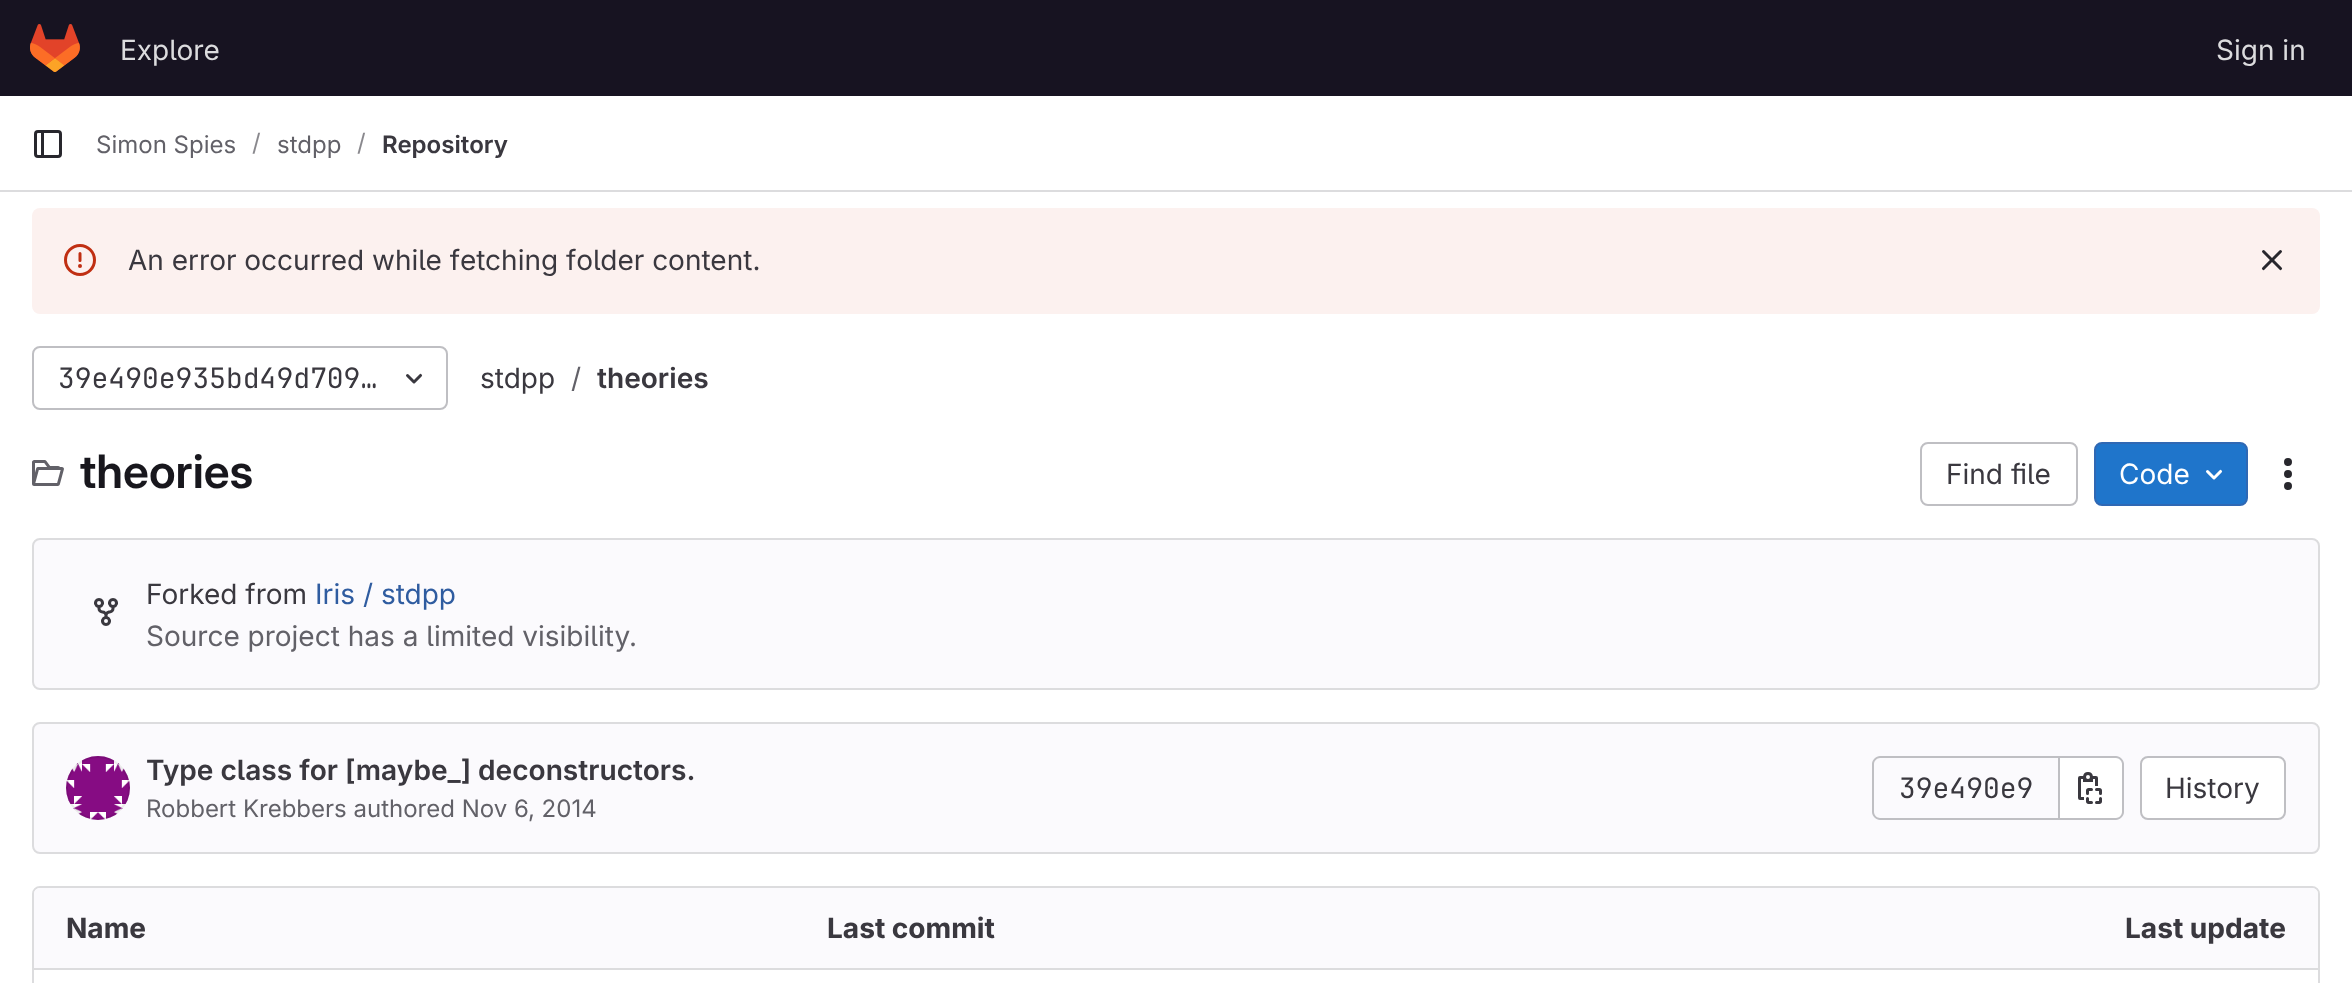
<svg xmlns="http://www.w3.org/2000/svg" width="2352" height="983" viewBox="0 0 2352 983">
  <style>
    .t1 { font: 28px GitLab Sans; fill: #dcdcde; }
    .t2 { font: 24px GitLab Sans; fill: #626168; }
    .t3 { font: 24px GitLab Sans; fill: #89888d; }
    .t4 { font: 600 24px GitLab Sans; fill: #3a383f; }
    .t5 { font: 28px GitLab Sans; fill: #3a383f; }
    .t6 { font: 28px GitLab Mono; fill: #3a383f; }
    .t7 { font: 28px GitLab Sans; fill: #626168; }
    .t8 { font: 600 28px GitLab Sans; fill: #3a383f; }
    .t9 { font: 600 46px 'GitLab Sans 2'; fill: #18171d; }
    .t10 { font: 28px GitLab Sans; fill: #fff; }
    .t11 { font: 28px GitLab Sans; fill: #2f5ca0; }
    .t12 { font: bold 28px GitLab Sans; fill: #3a383f; }
  </style>
  <rect width="100%" height="100%" fill="#fff"/>
  <rect x="0" y="0" width="2352" height="96" fill="#171321"/>
  <image x="30" y="24" width="50" height="48" href="images/1.png"/>
  <text x="120" y="60" class="t1">Explore</text>
  <text x="2216" y="60" class="t1">Sign in</text>
  <rect x="0" y="190" width="2352" height="2" fill="#dcdcde"/>
  <image x="34" y="130" width="28" height="28" href="images/2.png"/>
  <text x="96" y="153" class="t2">Simon Spies</text>
  <text x="252" y="151" class="t3">/</text>
  <text x="277" y="153" class="t2">stdpp</text>
  <text x="357" y="151" class="t3">/</text>
  <text x="382" y="153" class="t4">Repository</text>
  <rect x="32" y="208" width="2288" height="106" rx="8" fill="#fcf1ef"/>
  <image x="64" y="244" width="32" height="32" href="images/3.png"/>
  <text x="128" y="270" class="t5">An error occurred while fetching folder content.</text>
  <image x="2261" y="250" width="22" height="21" href="images/4.png"/>
  <rect x="33" y="347" width="414" height="62" rx="7" fill="none" stroke="#bfbfc3" stroke-width="2"/>
  <text x="58" y="388" class="t6">39e490e935bd49d709…</text>
  <image x="406" y="373" width="17" height="11" href="images/5.png"/>
  <text x="480" y="388" class="t5">stdpp</text>
  <text x="571" y="388" class="t7">/</text>
  <text x="597" y="388" class="t8">theories</text>
  <image x="32" y="460" width="32" height="26" href="images/6.png"/>
  <text x="80" y="488" class="t9">theories</text>
  <rect x="1921" y="443" width="156" height="62" rx="7" fill="none" stroke="#bfbfc3" stroke-width="2"/>
  <text x="1946" y="484" class="t5">Find file</text>
  <rect x="2095" y="443" width="152" height="62" rx="7" fill="#1f75cb" stroke="#2f68b4" stroke-width="2"/>
  <text x="2119" y="484" class="t10">Code</text>
  <image x="2206" y="469" width="17" height="11" href="images/7.png"/>
  <image x="2284" y="458" width="8" height="32" href="images/8.png"/>
  <rect x="33" y="539" width="2286" height="150" rx="7" fill="#fbfafd" stroke="#dcdcde" stroke-width="2"/>
  <image x="94" y="598" width="24" height="28" href="images/9.png"/>
  <text x="146" y="604" class="t5">Forked from</text>
  <text x="315" y="604" class="t11">Iris / stdpp</text>
  <text x="146" y="646" class="t7">Source project has a limited visibility.</text>
  <rect x="33" y="723" width="2286" height="130" rx="7" fill="#fbfafd" stroke="#dcdcde" stroke-width="2"/>
  <image x="66" y="756" width="64" height="64" href="images/10.png"/>
  <circle cx="98" cy="788" r="31" fill="none" stroke="#05050614" stroke-width="2"/>
  <text x="146" y="780" class="t8">Type class for [maybe_] deconstructors.</text>
  <text x="146" y="817" class="t2">Robbert Krebbers authored Nov 6, 2014</text>
  <path d="M1880 756H2058V820H1880C1876 820 1872 816 1872 812V764C1872 760 1876 756 1880 756ZM1880 758H2058V818H1880C1877 818 1874 815 1874 812V764C1874 761 1877 758 1880 758Z" fill="#bfbfc3" fill-rule="evenodd"/>
  <text x="1899" y="798" class="t6">39e490e9</text>
  <path d="M2060 758H2116C2119.5 758 2122 760.5 2122 764V812C2122 815.5 2119.5 818 2116 818H2060Z" fill="#fff"/>
  <path d="M2060 756H2116C2120 756 2124 760 2124 764V812C2124 816 2120 820 2116 820H2060ZM2060 758H2116C2119 758 2122 761 2122 764V812C2122 815 2119 818 2116 818H2060Z" fill="#bfbfc3" fill-rule="evenodd"/>
  <rect x="2058" y="756" width="2" height="64" fill="#bfbfc3"/>
  <image x="2078" y="772" width="24" height="32" href="images/11.png"/>
  <rect x="2141" y="757" width="144" height="62" rx="7" fill="#fff" stroke="#bfbfc3" stroke-width="2"/>
  <text x="2165" y="798" class="t5">History</text>
  <rect x="33" y="887" width="2286" height="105" rx="7" fill="none" stroke="#dcdcde" stroke-width="2"/>
  <path d="M40 888H796V970H34V894C34 890.5 36.5 888 40 888Z" fill="#fbfafd"/>
  <text x="66" y="938" class="t12">Name</text>
  <rect x="796" y="888" width="760" height="80" fill="#fbfafd"/>
  <text x="827" y="938" class="t12">Last commit</text>
  <path d="M1556 888H2312C2315.5 888 2318 890.5 2318 894V970H1556Z" fill="#fbfafd"/>
  <text x="2125" y="938" class="t12">Last update</text>
  <rect x="34" y="968" width="2284" height="2" fill="#dcdcde"/>
</svg>
